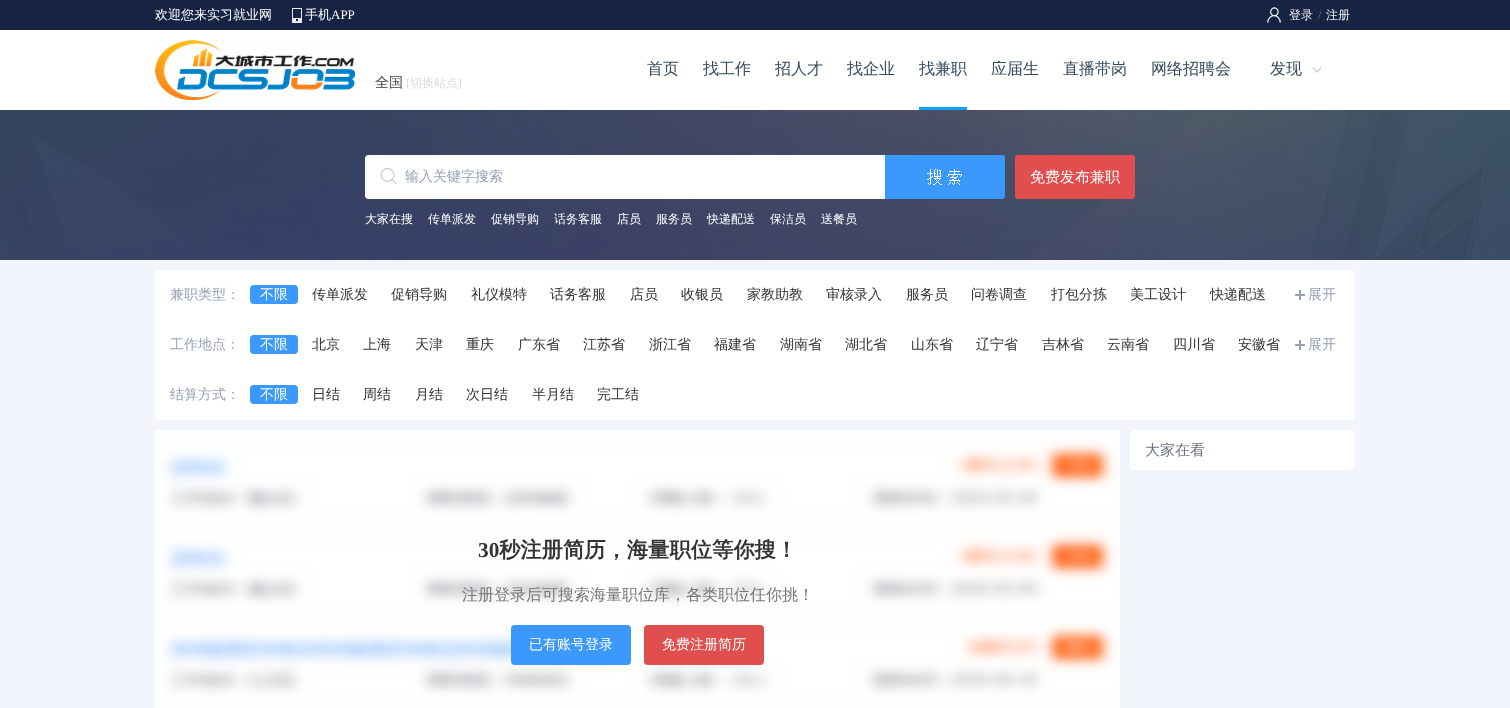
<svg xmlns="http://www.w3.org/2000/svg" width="1510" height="708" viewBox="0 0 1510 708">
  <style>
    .t1 { font: 500 13px WenQuanYi Zen Hei; fill: #fff; }
    .t2 { font: 13px Liberation Serif; fill: #fff; }
    .t3 { font: 500 12px WenQuanYi Zen Hei; fill: #eee; }
    .t4 { font: 12px Liberation Serif; fill: #777980; }
    .t5 { font: 500 16px WenQuanYi Zen Hei; fill: #36495f; }
    .t6 { font: 500 14px WenQuanYi Zen Hei; fill: #444; }
    .t7 { font: 12px Liberation Serif; fill: #d8dada; }
    .t8 { font: 500 12px WenQuanYi Zen Hei; fill: #d8dada; }
    .t9 { font: 500 14px WenQuanYi Zen Hei; fill: #98a1b5; }
    .t10 { font: 500 15px WenQuanYi Zen Hei; fill: #fff; }
    .t11 { font: 500 12px WenQuanYi Zen Hei; fill: #fff; }
    .t12 { font: 500 14px WenQuanYi Zen Hei; fill: #fff; }
    .t13 { font: 500 14px WenQuanYi Zen Hei; fill: #333; }
    .t14 { font: 500 15px WenQuanYi Zen Hei; fill: #6c7380; }
    .t15 { font: bold 21.3px Liberation Serif; fill: #333; }
    .t16 { font: bold 21.3px WenQuanYi Zen Hei; fill: #333; }
    .t17 { font: 500 16px WenQuanYi Zen Hei; fill: #777; }
  </style>
  <rect width="100%" height="100%" fill="#f2f5fb"/>
  <rect x="0" y="0" width="1510" height="30" fill="#172342"/>
  <text x="155" y="19" class="t1">欢迎您来实习就业网</text>
  <image x="292" y="8" width="10" height="15" href="images/1.png"/>
  <text x="305" y="19" class="t1">手机</text>
  <text x="331" y="19" class="t2">APP</text>
  <image x="1267" y="7" width="14" height="16" href="images/2.png"/>
  <text x="1289" y="19" class="t3">登录</text>
  <text x="1318" y="19" class="t4">/</text>
  <text x="1326" y="19" class="t3">注册</text>
  <rect x="0" y="30" width="1510" height="80" fill="#fff"/>
  <image x="155" y="40" width="200" height="60" href="images/3.png"/>
  <text x="647" y="74" class="t5">首页</text>
  <text x="703" y="74" class="t5">找工作</text>
  <text x="775" y="74" class="t5">招人才</text>
  <text x="847" y="74" class="t5">找企业</text>
  <rect x="919" y="107" width="48" height="3" fill="#0fa3f6"/>
  <text x="919" y="74" class="t5">找兼职</text>
  <text x="991" y="74" class="t5">应届生</text>
  <text x="1063" y="74" class="t5">直播带岗</text>
  <text x="1151" y="74" class="t5">网络招聘会</text>
  <image x="1312" y="67" width="10" height="6" href="images/4.png"/>
  <text x="1270" y="74" class="t5">发现</text>
  <text x="375" y="87" class="t6">全国</text>
  <text x="406" y="87" class="t7">[</text>
  <text x="410" y="87" class="t8">切换站点</text>
  <text x="458" y="87" class="t7">]</text>
  <image x="0" y="110" width="1510" height="150" href="images/5.png"/>
  <path d="M368 155H885V199H368C366.5 199 365 197.5 365 196V158C365 156.5 366.5 155 368 155Z" fill="#fff"/>
  <image x="380" y="168" width="17" height="17" href="images/6.png"/>
  <text x="405" y="181" class="t9">输入关键字搜索</text>
  <image x="885" y="155" width="120" height="44" href="images/7.png"/>
  <rect x="1015" y="155" width="120" height="44" rx="3" fill="#e14e4e"/>
  <text x="1030" y="182" class="t10">免费发布兼职</text>
  <text x="365" y="223" class="t11">大家在搜</text>
  <text x="428" y="223" class="t11">传单派发</text>
  <text x="491" y="223" class="t11">促销导购</text>
  <text x="554" y="223" class="t11">话务客服</text>
  <text x="617" y="223" class="t11">店员</text>
  <text x="656" y="223" class="t11">服务员</text>
  <text x="707" y="223" class="t11">快递配送</text>
  <text x="770" y="223" class="t11">保洁员</text>
  <text x="821" y="223" class="t11">送餐员</text>
  <rect x="155" y="270" width="1200" height="150" rx="4" fill="#fff"/>
  <text x="170" y="299" class="t9">兼职类型：</text>
  <rect x="250" y="285" width="48" height="19" rx="4" fill="#3b99fb"/>
  <text x="260" y="299" class="t12">不限</text>
  <text x="312" y="299" class="t13">传单派发</text>
  <text x="391" y="299" class="t13">促销导购</text>
  <text x="471" y="299" class="t13">礼仪模特</text>
  <text x="550" y="299" class="t13">话务客服</text>
  <text x="630" y="299" class="t13">店员</text>
  <text x="681" y="299" class="t13">收银员</text>
  <text x="747" y="299" class="t13">家教助教</text>
  <text x="826" y="299" class="t13">审核录入</text>
  <text x="906" y="299" class="t13">服务员</text>
  <text x="971" y="299" class="t13">问卷调查</text>
  <text x="1051" y="299" class="t13">打包分拣</text>
  <text x="1130" y="299" class="t13">美工设计</text>
  <text x="1210" y="299" class="t13">快递配送</text>
  <image x="1295" y="290" width="10" height="10" href="images/8.png"/>
  <text x="1308" y="299" class="t9">展开</text>
  <text x="170" y="349" class="t9">工作地点：</text>
  <rect x="250" y="335" width="48" height="19" rx="4" fill="#3b99fb"/>
  <text x="260" y="349" class="t12">不限</text>
  <text x="312" y="349" class="t13">北京</text>
  <text x="363" y="349" class="t13">上海</text>
  <text x="415" y="349" class="t13">天津</text>
  <text x="466" y="349" class="t13">重庆</text>
  <text x="518" y="349" class="t13">广东省</text>
  <text x="583" y="349" class="t13">江苏省</text>
  <text x="649" y="349" class="t13">浙江省</text>
  <text x="714" y="349" class="t13">福建省</text>
  <text x="780" y="349" class="t13">湖南省</text>
  <text x="845" y="349" class="t13">湖北省</text>
  <text x="911" y="349" class="t13">山东省</text>
  <text x="976" y="349" class="t13">辽宁省</text>
  <text x="1042" y="349" class="t13">吉林省</text>
  <text x="1107" y="349" class="t13">云南省</text>
  <text x="1173" y="349" class="t13">四川省</text>
  <text x="1238" y="349" class="t13">安徽省</text>
  <image x="1295" y="340" width="10" height="10" href="images/8.png"/>
  <text x="1308" y="349" class="t9">展开</text>
  <text x="170" y="399" class="t9">结算方式：</text>
  <rect x="250" y="385" width="48" height="19" rx="4" fill="#3b99fb"/>
  <text x="260" y="399" class="t12">不限</text>
  <text x="312" y="399" class="t13">日结</text>
  <text x="363" y="399" class="t13">周结</text>
  <text x="415" y="399" class="t13">月结</text>
  <text x="466" y="399" class="t13">次日结</text>
  <text x="532" y="399" class="t13">半月结</text>
  <text x="597" y="399" class="t13">完工结</text>
  <rect x="1130" y="430" width="225" height="40" rx="4" fill="#fff"/>
  <text x="1145" y="455" class="t14">大家在看</text>
  <image x="155" y="430" width="965" height="278" href="images/9.png"/>
  <text x="478" y="557" class="t15">30</text>
  <text x="499" y="557" class="t16">秒注册简历，海量职位等你搜！</text>
  <text x="462" y="600" class="t17">注册登录后可搜索海量职位库，各类职位任你挑！</text>
  <rect x="511" y="625" width="120" height="40" rx="4" fill="#3b99fb"/>
  <text x="529" y="649" class="t12">已有账号登录</text>
  <rect x="644" y="625" width="120" height="40" rx="4" fill="#e14e4e"/>
  <text x="662" y="649" class="t12">免费注册简历</text>
</svg>
